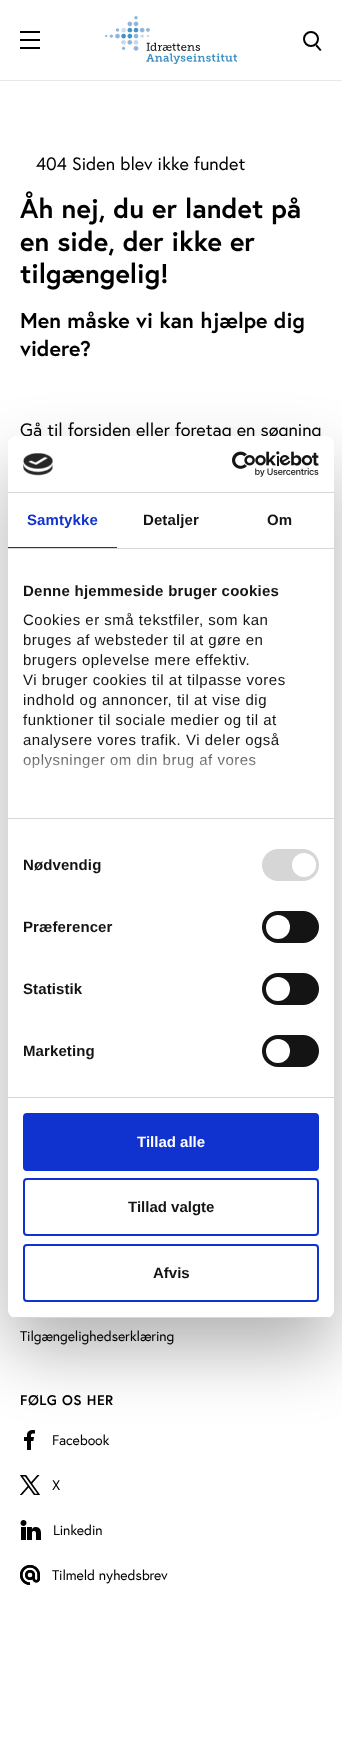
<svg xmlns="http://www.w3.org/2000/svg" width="342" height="1754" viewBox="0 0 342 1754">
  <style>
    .t1 { font: 18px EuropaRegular; fill: #000; }
    .t2 { font: bold 27.1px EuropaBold; fill: #000; }
    .t3 { font: bold 21.5px EuropaBold; fill: #000; }
    .t4 { font: 14px EuropaRegular; letter-spacing: -0.1px; fill: #000; }
    .t5 { font: bold 14px EuropaBold; letter-spacing: 0.5px; fill: #000; }
    .t6 { font: bold 15px Liberation Sans; letter-spacing: 0.1px; fill: #1032cf; }
    .t7 { font: bold 15px Liberation Sans; letter-spacing: 0.1px; fill: #141414; }
    .t8 { font: bold 15px Liberation Sans; letter-spacing: 0.25px; fill: #141414; }
    .t9 { font: 15px Liberation Sans; letter-spacing: 0.5px; fill: #141414; }
    .t10 { font: bold 15px Liberation Sans; fill: #fff; }
    .t11 { font: bold 15px Liberation Sans; fill: #141414; }
  </style>
  <defs>
    <linearGradient id="g1" gradientUnits="userSpaceOnUse" x1="165" y1="818" x2="165" y2="743"><stop offset="0" stop-color="#fff"/><stop offset="0.5" stop-color="#fff" stop-opacity="0.8"/><stop offset="1" stop-color="#fff" stop-opacity="0"/></linearGradient>
    <clipPath id="clip1"><rect x="8" y="436" width="326" height="882" rx="8"/></clipPath>
  </defs>
  <rect width="100%" height="100%" fill="#fff"/>
  <rect x="0" y="80" width="342" height="1" fill="#e8e8e8"/>
  <rect x="20" y="31" width="20" height="2" fill="#000"/>
  <rect x="20" y="39" width="20" height="2" fill="#000"/>
  <rect x="20" y="47" width="20" height="2" fill="#000"/>
  <image x="105" y="16" width="132" height="48" href="images/1.png"/>
  <circle cx="311" cy="39" r="7" fill="none" stroke="#000" stroke-width="2"/>
  <path d="M317 44.5L321.5 50L320 51L315.5 46Z" fill="#000"/>
  <text x="36" y="170" class="t1">404 Siden blev ikke fundet</text>
  <text x="20" y="218" class="t2">Åh nej, du er landet på</text>
  <text x="20" y="251" class="t2">en side, der ikke er</text>
  <text x="20" y="283" class="t2">tilgængelig!</text>
  <text x="20" y="328" class="t3">Men måske vi kan hjælpe dig</text>
  <text x="20" y="356" class="t3">videre?</text>
  <text x="20" y="436" class="t1">Gå til forsiden eller foretag en søgning</text>
  <text x="20" y="1341" class="t4">Tilgængelighedserklæring</text>
  <text x="20" y="1405" class="t5">FØLG OS HER</text>
  <image x="24" y="1430" width="11" height="20" href="images/2.png"/>
  <text x="52" y="1445" class="t4">Facebook</text>
  <image x="20" y="1475" width="20" height="20" href="images/3.png"/>
  <text x="52" y="1490" class="t4">X</text>
  <image x="20" y="1520" width="21" height="20" href="images/4.png"/>
  <text x="53" y="1535" class="t4">Linkedin</text>
  <image x="20" y="1565" width="20" height="20" href="images/5.png"/>
  <text x="52" y="1580" class="t4">Tilmeld nyhedsbrev</text>
  <rect x="8" y="468" width="326" height="882" rx="8" fill="#0000004d" filter="blur(34px)"/>
  <rect x="8" y="436" width="326" height="882" rx="8" fill="#fff"/>
  <rect x="8" y="492" width="326" height="1" fill="#d6d6d6"/>
  <image x="23" y="453" width="30" height="23" href="images/6.png"/>
  <image x="232" y="451" width="87" height="26" href="images/7.png"/>
  <rect x="8" y="548" width="326" height="1" fill="#d6d6d6"/>
  <rect x="8" y="547" width="109" height="1" fill="#1032cf"/>
  <text x="27" y="525" class="t6">Samtykke</text>
  <text x="143" y="525" class="t7">Detaljer</text>
  <text x="267" y="525" class="t7">Om</text>
  <rect x="8" y="818" width="326" height="1" fill="#d6d6d6"/>
  <text x="23" y="596" class="t8">Denne hjemmeside bruger cookies</text>
  <text x="23" y="625" class="t9">Cookies er små tekstfiler, som kan</text>
  <text x="23" y="645" class="t9">bruges af websteder til at gøre en</text>
  <text x="23" y="665" class="t9">brugers oplevelse mere effektiv.</text>
  <text x="23" y="685" class="t9">Vi bruger cookies til at tilpasse vores</text>
  <text x="23" y="705" class="t9">indhold og annoncer, til at vise dig</text>
  <text x="23" y="725" class="t9">funktioner til sociale medier og til at</text>
  <text x="23" y="745" class="t9">analysere vores trafik. Vi deler også</text>
  <text x="23" y="765" class="t9">oplysninger om din brug af vores</text>
  <rect x="23" y="744" width="256" height="25" fill="url(#g1)"/>
  <rect x="8" y="1097" width="326" height="1" fill="#d6d6d6"/>
  <text x="23" y="870" class="t7">Nødvendig</text>
  <rect x="262" y="849" width="57" height="32" rx="16" fill="#d6d6d6"/>
  <circle cx="304" cy="865" r="12" fill="#fff"/>
  <text x="23" y="932" class="t7">Præferencer</text>
  <rect x="262" y="911" width="57" height="32" rx="16" fill="#141414"/>
  <circle cx="278" cy="927" r="12" fill="#fff"/>
  <text x="23" y="994" class="t7">Statistik</text>
  <rect x="262" y="973" width="57" height="32" rx="16" fill="#141414"/>
  <circle cx="278" cy="989" r="12" fill="#fff"/>
  <text x="23" y="1056" class="t7">Marketing</text>
  <rect x="262" y="1035" width="57" height="32" rx="16" fill="#141414"/>
  <circle cx="278" cy="1051" r="12" fill="#fff"/>
  <g clip-path="url(#clip1)">
    <rect x="8" y="1317" width="326" height="1" fill="#d6d6d6"/>
  </g>
  <rect x="24" y="1114" width="294" height="56" rx="3" fill="#1032cf" stroke="#1032cf" stroke-width="2"/>
  <text x="137" y="1147" class="t10">Tillad alle</text>
  <rect x="24" y="1179" width="294" height="56" rx="3" fill="none" stroke="#1032cf" stroke-width="2"/>
  <text x="128" y="1212" class="t11">Tillad valgte</text>
  <rect x="24" y="1245" width="294" height="56" rx="3" fill="none" stroke="#1032cf" stroke-width="2"/>
  <text x="153" y="1278" class="t11">Afvis</text>
</svg>
